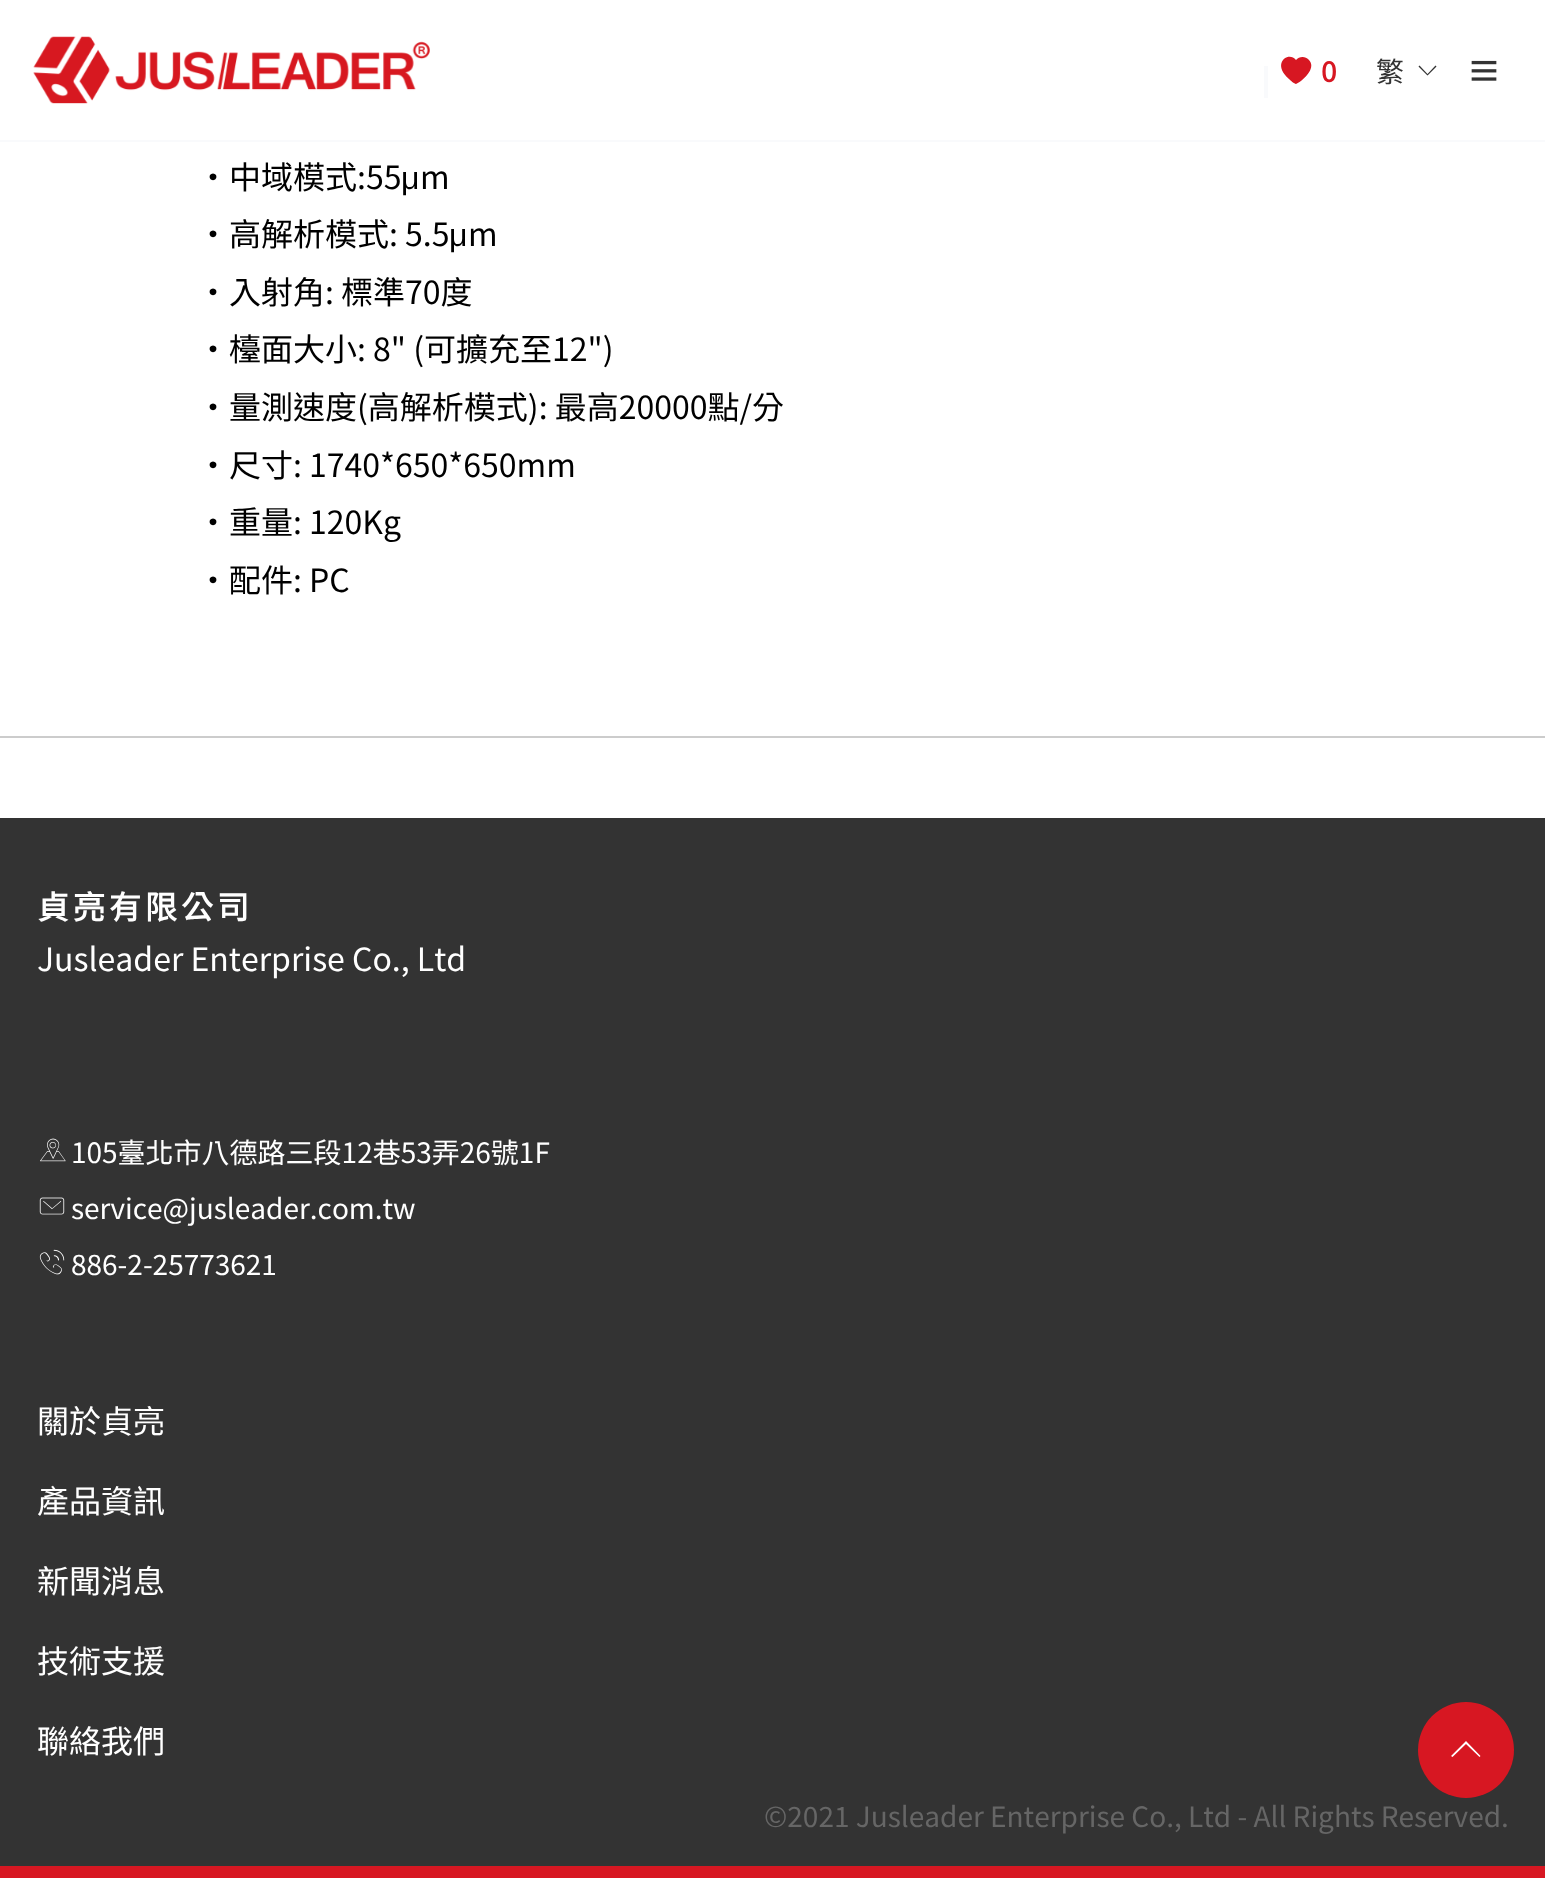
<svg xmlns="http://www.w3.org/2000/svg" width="1545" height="1878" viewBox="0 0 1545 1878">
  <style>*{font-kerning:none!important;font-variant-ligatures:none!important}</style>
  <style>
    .t1 { font: bold 28px Noto Sans TC; fill: #d71722; }
    .t2 { font: 100 28px Noto Sans TC; fill: #333; }
    .t3 { font: 100 32px Noto Sans TC; fill: #000; }
    .t4 { font: 32px Liberation Sans; fill: #000; }
    .t5 { font: bold 32px Noto Sans TC; letter-spacing: 4px; fill: #fff; }
    .t6 { font: 100 32px Noto Sans TC; fill: #fff; }
    .t7 { font: 100 28px Noto Sans TC; fill: #fff; }
    .t8 { font: 100 28px Noto Sans TC; fill: #666; }
  </style>
  <rect width="100%" height="100%" fill="#fff"/>
  <rect x="0" y="140" width="1545" height="2" fill="#f9fafc"/>
  <image x="33" y="36" width="397" height="68" href="images/1.png"/>
  <rect x="1264" y="66" width="4" height="32" fill="#f9fafc"/>
  <path d="M1302.5 57C1300 57 1297.5 58 1296 60C1288.5 50.5 1271 63.5 1289 79C1290 80 1294.5 84 1296 84L1299.5 82C1305.5 78 1316.5 67 1308.5 59.5C1307 58 1305 57 1302.5 57Z" fill="#d71722"/>
  <text x="1321" y="82" class="t1">0</text>
  <text x="1376" y="82" class="t2">繁</text>
  <path d="M1436.5 66.5L1427.5 75.5L1418.5 66.5L1419.5 65.5L1427.5 74L1435.5 65.5Z" fill="#333"/>
  <image x="1471" y="60" width="26" height="21" href="images/2.png"/>
  <text x="197" y="189" class="t3">•中域模式:55</text>
  <text x="401" y="189" class="t4">μ</text>
  <text x="420" y="189" class="t3">m</text>
  <text x="197" y="246" class="t3">•高解析模式: 5.5</text>
  <text x="449" y="246" class="t4">μ</text>
  <text x="468" y="246" class="t3">m</text>
  <text x="197" y="304" class="t3">•入射角: 標準70度</text>
  <text x="197" y="361" class="t3">•檯面大小: 8" (可擴充至12")</text>
  <text x="197" y="419" class="t3">•量測速度(高解析模式): 最高20000點/分</text>
  <text x="197" y="477" class="t3">•尺寸: 1740*650*650mm</text>
  <text x="197" y="534" class="t3">•重量: 120Kg</text>
  <text x="197" y="592" class="t3">•配件: PC</text>
  <rect x="0" y="736" width="1545" height="2" fill="#ccc"/>
  <rect x="0" y="818" width="1545" height="1048" fill="#333"/>
  <text x="37" y="919" class="t5">貞亮有限公司</text>
  <text x="37" y="971" class="t6">Jusleader Enterprise Co., Ltd</text>
  <image x="40" y="1138" width="26" height="24" href="images/3.png"/>
  <text x="71" y="1163" class="t7">105臺北市八德路三段12巷53弄26號1F</text>
  <image x="39" y="1197" width="26" height="18" href="images/4.png"/>
  <text x="71" y="1219" class="t7">service@jusleader.com.tw</text>
  <image x="39" y="1249" width="26" height="26" href="images/5.png"/>
  <text x="71" y="1275" class="t7">886-2-25773621</text>
  <text x="37" y="1433" class="t6">關於貞亮</text>
  <text x="37" y="1513" class="t6">產品資訊</text>
  <text x="37" y="1593" class="t6">新聞消息</text>
  <text x="37" y="1673" class="t6">技術支援</text>
  <text x="37" y="1753" class="t6">聯絡我們</text>
  <text x="764" y="1827" class="t8">©2021 Jusleader Enterprise Co., Ltd - All Rights Reserved.</text>
  <rect x="0" y="1866" width="1545" height="12" fill="#d71722"/>
  <circle cx="1466" cy="1750" r="48" fill="#d71722"/>
  <path d="M1466 1741L1480.5 1756L1479.5 1757L1466 1744L1452.5 1757L1451 1756Z" fill="#fff"/>
</svg>
